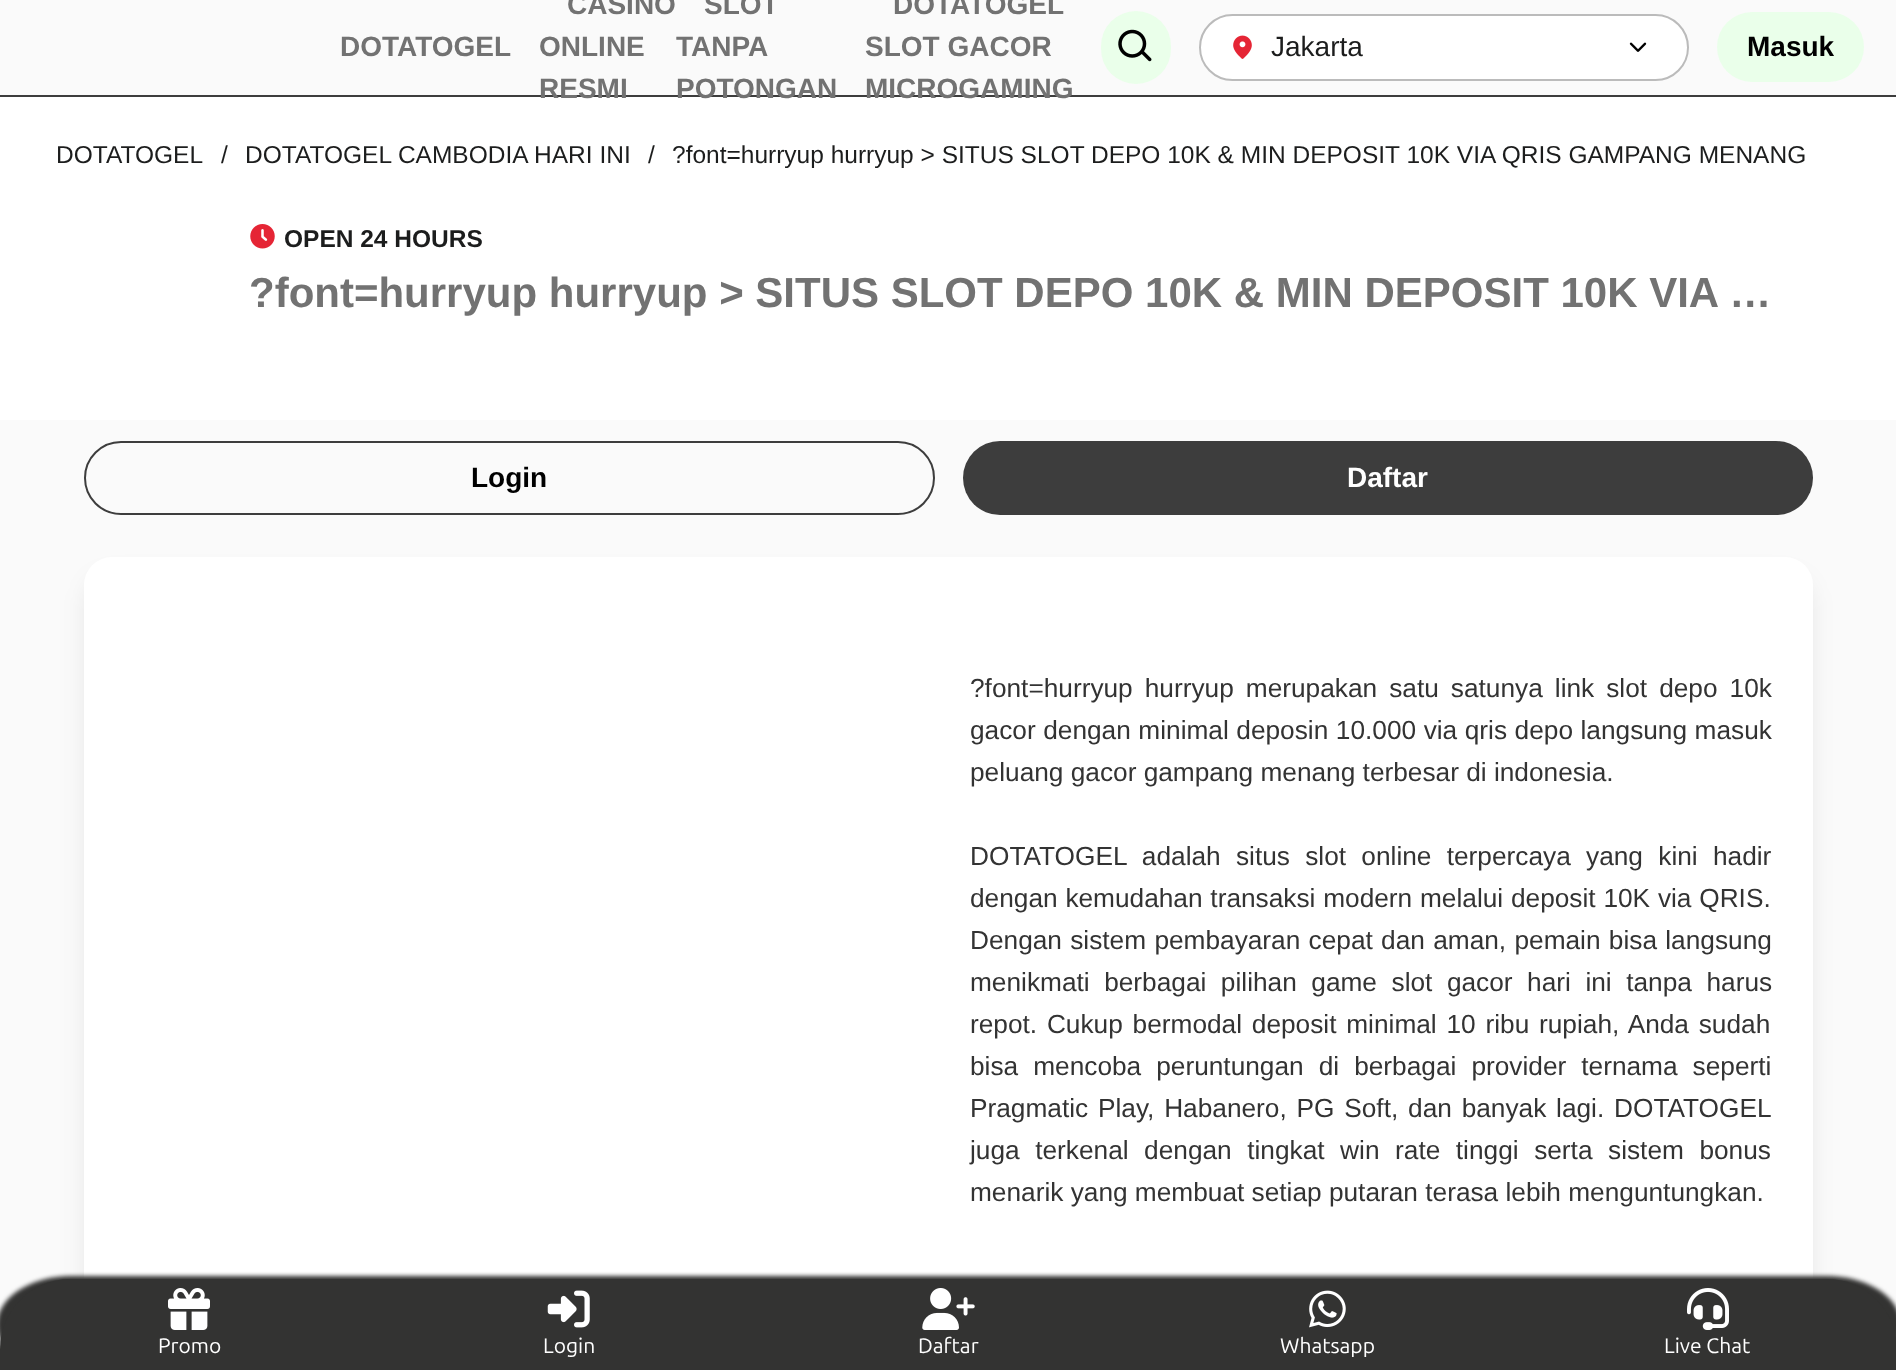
<svg xmlns="http://www.w3.org/2000/svg" width="1896" height="1370" viewBox="0 0 1896 1370">
  <style>
    .t1 { font: bold 28px Liberation Sans; fill: #727272; }
    .t2 { font: 28px Liberation Sans; fill: #1c1d1d; }
    .t3 { font: bold 28px Liberation Sans; fill: #000; }
    .t4 { font: 24.5px Liberation Sans; fill: #1c1d1d; }
    .t5 { font: bold 24.5px Liberation Sans; fill: #1c1d1d; }
    .t6 { font: bold 42px Liberation Sans; fill: #727272; }
    .t7 { font: bold 28px Liberation Sans; fill: #fff; }
    .t8 { font: 26.25px Liberation Sans; fill: #333; }
    .t9 { font: 21px Ubuntu; fill: #fff; }
  </style>
  <rect width="100%" height="100%" fill="#fff"/>
  <rect x="0" y="0" width="1896" height="95" fill="#fafafa"/>
  <rect x="0" y="95" width="1896" height="2" fill="#3d3d3d"/>
  <text x="340" y="56" class="t1">DOTATOGEL</text>
  <text x="567" y="14" class="t1">CASINO</text>
  <text x="539" y="56" class="t1">ONLINE</text>
  <text x="539" y="98" class="t1">RESMI</text>
  <text x="704" y="14" class="t1">SLOT</text>
  <text x="676" y="56" class="t1">TANPA</text>
  <text x="676" y="98" class="t1">POTONGAN</text>
  <text x="893" y="14" class="t1">DOTATOGEL</text>
  <text x="865" y="56" class="t1">SLOT GACOR</text>
  <text x="865" y="98" class="t1">MICROGAMING</text>
  <rect x="1101" y="11" width="70" height="73" rx="35" fill="#eaffea"/>
  <image x="1118" y="29" width="34" height="33" href="images/1.png"/>
  <rect x="1200" y="15" width="488" height="65" rx="32.5" fill="#fff" stroke="#bbb" stroke-width="2"/>
  <image x="1233" y="35" width="19" height="24" href="images/2.png"/>
  <text x="1271" y="56" class="t2">Jakarta</text>
  <image x="1629" y="42" width="18" height="10" href="images/3.png"/>
  <rect x="1717" y="12" width="147" height="70" rx="35" fill="#eaffea"/>
  <text x="1747" y="56" class="t3">Masuk</text>
  <text x="56" y="163" class="t4">DOTATOGEL</text>
  <text x="221" y="163" class="t4">/</text>
  <text x="245" y="163" class="t4">DOTATOGEL CAMBODIA HARI INI</text>
  <text x="648" y="163" class="t4">/</text>
  <text x="672" y="163" class="t4">?font=hurryup hurryup &gt; SITUS SLOT DEPO 10K &amp; MIN DEPOSIT 10K VIA QRIS GAMPANG MENANG</text>
  <image x="250" y="224" width="25" height="25" href="images/4.png"/>
  <text x="284" y="247" class="t5">OPEN 24 HOURS</text>
  <text x="249" y="307" class="t6">?font=hurryup hurryup &gt; SITUS SLOT DEPO 10K &amp; MIN DEPOSIT 10K VIA …</text>
  <rect x="0" y="420" width="1896" height="929" fill="#fafafa"/>
  <rect x="85" y="442" width="849" height="72" rx="36" fill="none" stroke="#3d3d3d" stroke-width="2"/>
  <text x="471" y="487" class="t3">Login</text>
  <rect x="963" y="441" width="850" height="74" rx="37" fill="#3d3d3d"/>
  <text x="1347" y="487" class="t7">Daftar</text>
  <rect x="89" y="579" width="1719" height="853" rx="23" fill="#0000001a" filter="blur(13px)"/>
  <rect x="84" y="557" width="1729" height="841" rx="28" fill="#fff"/>
  <text x="970" y="697" word-spacing="4.75" class="t8">?font=hurryup hurryup merupakan satu satunya link slot depo 10k</text>
  <text x="970" y="739" word-spacing="0.25" class="t8">gacor dengan minimal deposin 10.000 via qris depo langsung masuk</text>
  <text x="970" y="781" class="t8">peluang gacor gampang menang terbesar di indonesia.</text>
  <text x="970" y="865" word-spacing="8" class="t8">DOTATOGEL adalah situs slot online terpercaya yang kini hadir</text>
  <text x="970" y="907" word-spacing="0.5" class="t8">dengan kemudahan transaksi modern melalui deposit 10K via QRIS.</text>
  <text x="970" y="949" word-spacing="1" class="t8">Dengan sistem pembayaran cepat dan aman, pemain bisa langsung</text>
  <text x="970" y="991" word-spacing="7.25" class="t8">menikmati berbagai pilihan game slot gacor hari ini tanpa harus</text>
  <text x="970" y="1033" word-spacing="2.5" class="t8">repot. Cukup bermodal deposit minimal 10 ribu rupiah, Anda sudah</text>
  <text x="970" y="1075" word-spacing="7.75" class="t8">bisa mencoba peruntungan di berbagai provider ternama seperti</text>
  <text x="970" y="1117" word-spacing="2.5" class="t8">Pragmatic Play, Habanero, PG Soft, dan banyak lagi. DOTATOGEL</text>
  <text x="970" y="1159" word-spacing="8.25" class="t8">juga terkenal dengan tingkat win rate tinggi serta sistem bonus</text>
  <text x="970" y="1201" class="t8">menarik yang membuat setiap putaran terasa lebih menguntungkan.</text>
  <rect x="-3" y="1276" width="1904" height="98" rx="74" fill="#333332" filter="blur(2px)"/>
  <path d="M70 1279H1827C1865.5 1279 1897 1310.5 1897 1349V1370H0V1349C0 1310.5 31.5 1279 70 1279Z" fill="#333332"/>
  <image x="168" y="1288" width="42" height="42" href="images/5.png"/>
  <text x="158" y="1353" class="t9">Promo</text>
  <image x="547" y="1290" width="43" height="38" href="images/6.png"/>
  <text x="543" y="1353" class="t9">Login</text>
  <image x="922" y="1288" width="53" height="42" href="images/7.png"/>
  <text x="918" y="1353" class="t9">Daftar</text>
  <image x="1309" y="1290" width="37" height="38" href="images/8.png"/>
  <text x="1280" y="1353" class="t9">Whatsapp</text>
  <image x="1687" y="1288" width="42" height="42" href="images/9.png"/>
  <text x="1664" y="1353" class="t9">Live Chat</text>
</svg>
